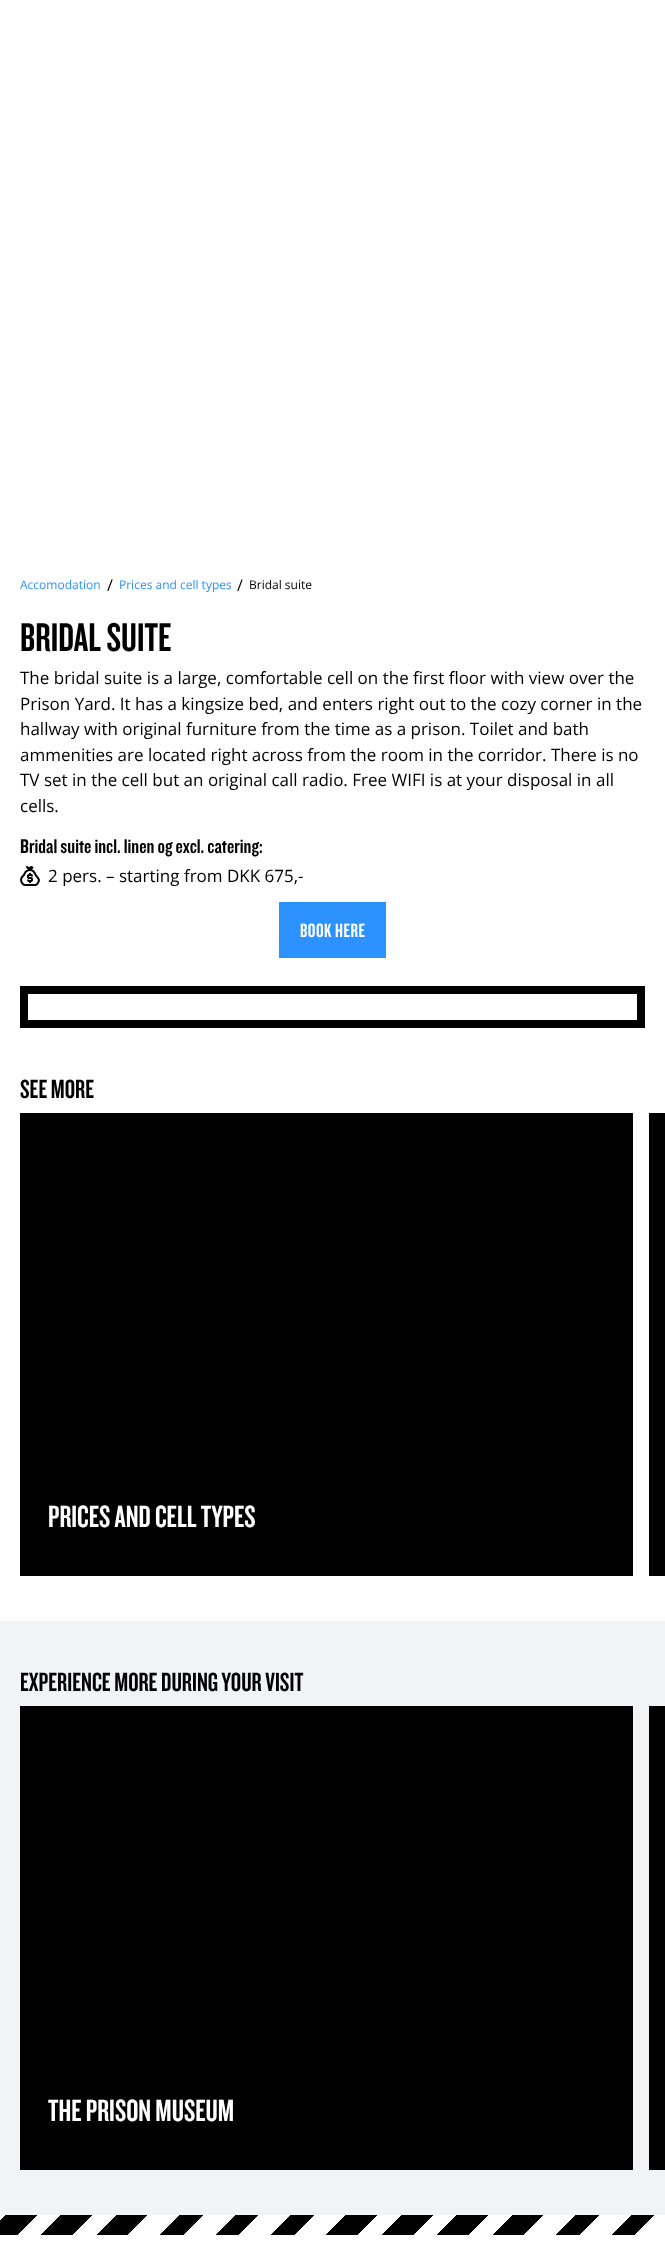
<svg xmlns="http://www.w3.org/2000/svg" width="665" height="2247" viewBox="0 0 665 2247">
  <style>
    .t1 { font: 12px Open Sans; fill: #2b92ff; }
    .t2 { font: 16px Open Sans; fill: #000; }
    .t3 { font: 12px Open Sans; fill: #000; }
    .t4 { font: 41.5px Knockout; fill: #000; }
    .t5 { font: 17px Open Sans; fill: #000; }
    .t6 { font: 20.6px 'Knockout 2'; fill: #000; }
    .t7 { font: 20px Knockout; letter-spacing: 0.5px; fill: #fff; }
    .t8 { font: 27.25px Knockout; fill: #000; }
    .t9 { font: 32px Knockout; fill: #fff; }
  </style>
  <defs>
    <linearGradient id="g1" gradientUnits="userSpaceOnUse" x1="532" y1="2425" x2="136" y2="2029"><stop offset="0" stop-color="#fff"/><stop offset="0.04" stop-color="#fff"/><stop offset="0.04" stop-color="#000"/><stop offset="0.07" stop-color="#000"/><stop offset="0.07" stop-color="#fff"/><stop offset="0.11" stop-color="#fff"/><stop offset="0.11" stop-color="#000"/><stop offset="0.14" stop-color="#000"/><stop offset="0.14" stop-color="#fff"/><stop offset="0.18" stop-color="#fff"/><stop offset="0.18" stop-color="#000"/><stop offset="0.21" stop-color="#000"/><stop offset="0.21" stop-color="#fff"/><stop offset="0.25" stop-color="#fff"/><stop offset="0.25" stop-color="#000"/><stop offset="0.29" stop-color="#000"/><stop offset="0.29" stop-color="#fff"/><stop offset="0.32" stop-color="#fff"/><stop offset="0.32" stop-color="#000"/><stop offset="0.36" stop-color="#000"/><stop offset="0.36" stop-color="#fff"/><stop offset="0.39" stop-color="#fff"/><stop offset="0.39" stop-color="#000"/><stop offset="0.43" stop-color="#000"/><stop offset="0.43" stop-color="#fff"/><stop offset="0.46" stop-color="#fff"/><stop offset="0.46" stop-color="#000"/><stop offset="0.5" stop-color="#000"/><stop offset="0.5" stop-color="#fff"/><stop offset="0.54" stop-color="#fff"/><stop offset="0.54" stop-color="#000"/><stop offset="0.57" stop-color="#000"/><stop offset="0.57" stop-color="#fff"/><stop offset="0.61" stop-color="#fff"/><stop offset="0.61" stop-color="#000"/><stop offset="0.64" stop-color="#000"/><stop offset="0.64" stop-color="#fff"/><stop offset="0.68" stop-color="#fff"/><stop offset="0.68" stop-color="#000"/><stop offset="0.71" stop-color="#000"/><stop offset="0.71" stop-color="#fff"/><stop offset="0.75" stop-color="#fff"/><stop offset="0.75" stop-color="#000"/><stop offset="0.79" stop-color="#000"/><stop offset="0.79" stop-color="#fff"/><stop offset="0.82" stop-color="#fff"/><stop offset="0.82" stop-color="#000"/><stop offset="0.86" stop-color="#000"/><stop offset="0.86" stop-color="#fff"/><stop offset="0.89" stop-color="#fff"/><stop offset="0.89" stop-color="#000"/><stop offset="0.93" stop-color="#000"/><stop offset="0.93" stop-color="#fff"/><stop offset="0.96" stop-color="#fff"/><stop offset="0.96" stop-color="#000"/><stop offset="1" stop-color="#000"/></linearGradient>
  </defs>
  <rect width="100%" height="100%" fill="#fff"/>
  <text x="20" y="589" class="t1">Accomodation</text>
  <text x="107" y="591" class="t2">/</text>
  <text x="119" y="589" class="t1">Prices and cell types</text>
  <text x="237" y="591" class="t2">/</text>
  <text x="249" y="589" class="t3">Bridal suite</text>
  <text x="20" y="651" class="t4">BRIDAL SUITE</text>
  <text x="20" y="684" class="t5">The bridal suite is a large, comfortable cell on the first floor with view over the</text>
  <text x="20" y="710" class="t5">Prison Yard. It has a kingsize bed, and enters right out to the cozy corner in the</text>
  <text x="20" y="735" class="t5">hallway with original furniture from the time as a prison. Toilet and bath</text>
  <text x="20" y="761" class="t5">ammenities are located right across from the room in the corridor. There is no</text>
  <text x="20" y="786" class="t5">TV set in the cell but an original call radio. Free WIFI is at your disposal in all</text>
  <text x="20" y="812" class="t5">cells.</text>
  <text x="20" y="853" class="t6">Bridal suite incl. linen og excl. catering:</text>
  <image x="20" y="866" width="20" height="20" href="images/1.png"/>
  <text x="48" y="882" class="t5">2 pers. – starting from DKK 675,-</text>
  <rect x="279" y="902" width="107" height="56" fill="#2b92ff"/>
  <text x="300" y="937" class="t7">BOOK HERE</text>
  <rect x="24" y="990" width="617" height="34" fill="none" stroke="#000" stroke-width="8"/>
  <text x="20" y="1098" class="t8">SEE MORE</text>
  <rect x="20" y="1113" width="613" height="463" fill="#000"/>
  <text x="48" y="1527" class="t9">PRICES AND CELL TYPES</text>
  <rect x="649" y="1113" width="16" height="463" fill="#000"/>
  <rect x="0" y="1621" width="665" height="594" fill="#f2f3f4"/>
  <text x="20" y="1691" class="t8">EXPERIENCE MORE DURING YOUR VISIT</text>
  <rect x="20" y="1706" width="613" height="464" fill="#000"/>
  <text x="48" y="2121" class="t9">THE PRISON MUSEUM</text>
  <rect x="649" y="1706" width="16" height="464" fill="#000"/>
  <rect x="0" y="2215" width="654" height="20" fill="url(#g1)"/>
</svg>
